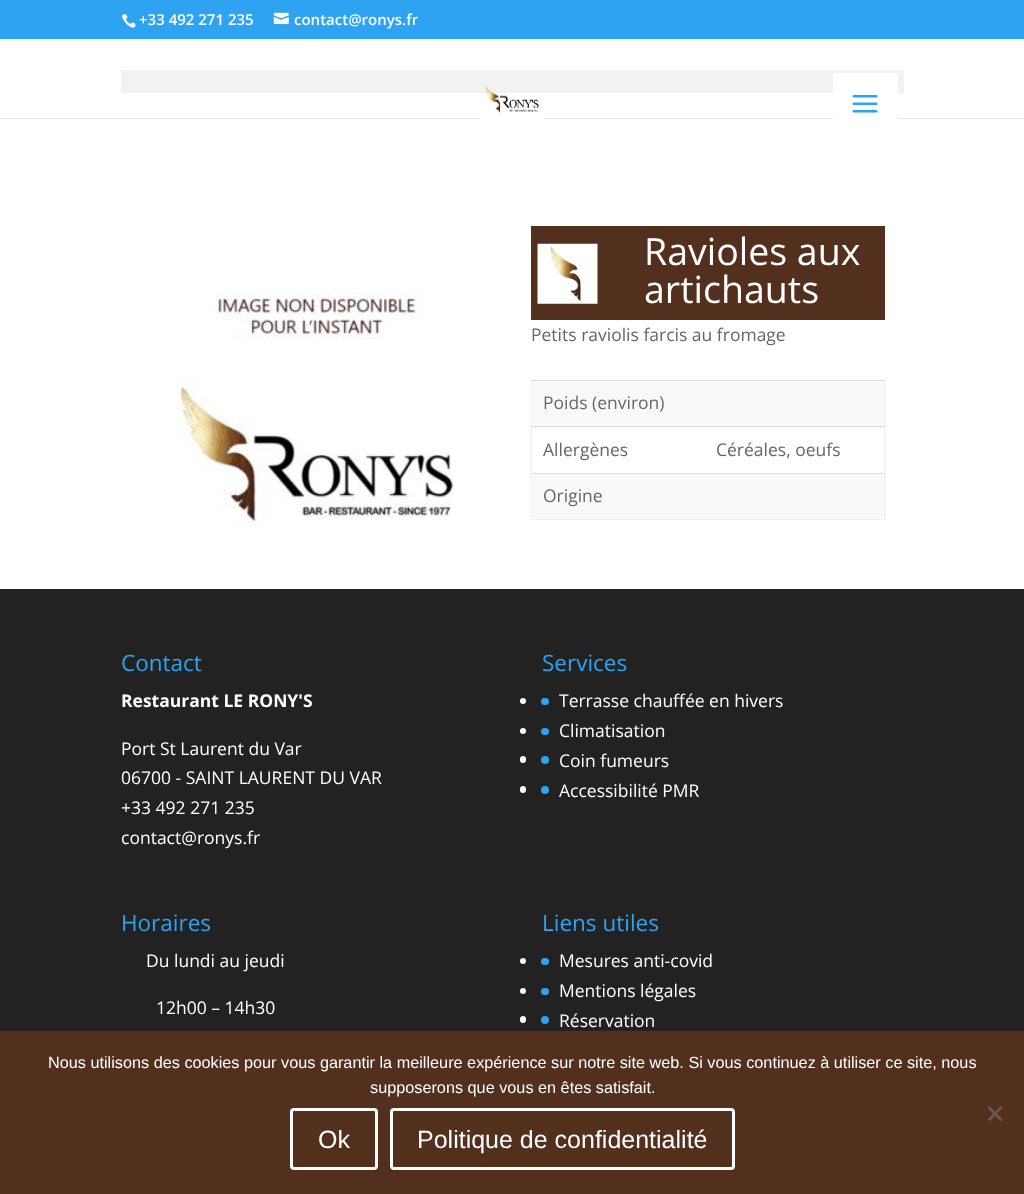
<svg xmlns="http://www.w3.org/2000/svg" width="1024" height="1194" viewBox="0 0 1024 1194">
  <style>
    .t1 { font: 600 15px Open Sans; fill: #fff; }
    .t2 { font: 37.5px Open Sans; fill: #fff; }
    .t3 { font: 17.5px Open Sans; fill: #666; }
    .t4 { font: 22.5px Open Sans; fill: #2ea3f2; }
    .t5 { font: bold 17.5px Open Sans; fill: #fff; }
    .t6 { font: 17.5px Open Sans; fill: #fff; }
    .t7 { font: 16.25px Liberation Sans; fill: #fff; }
    .t8 { font: 25px Liberation Sans; fill: #fff; }
  </style>
  <rect width="100%" height="100%" fill="#fff"/>
  <rect x="0" y="0" width="1024" height="39" fill="#2ea3f2"/>
  <image x="121" y="14" width="15" height="14" href="images/1.png"/>
  <text x="139" y="25" class="t1">+33 492 271 235</text>
  <image x="273" y="12" width="16" height="13" href="images/2.png"/>
  <text x="294" y="25" class="t1">contact@ronys.fr</text>
  <rect x="0" y="118" width="1024" height="1" fill="#e6e6e6"/>
  <image x="480" y="86" width="65" height="33" href="images/4.png"/>
  <rect x="121" y="70" width="783" height="23" fill="#0000000d"/>
  <rect x="833" y="73" width="65" height="46" fill="#fff"/>
  <image x="852" y="95" width="26" height="18" href="images/3.png"/>
  <image x="178" y="292" width="279" height="236" href="images/5.png"/>
  <rect x="531" y="226" width="354" height="94" fill="#532f1e"/>
  <image x="537" y="243" width="61" height="61" href="images/6.png"/>
  <text x="644" y="265" class="t2">Ravioles aux</text>
  <text x="644" y="303" class="t2">artichauts</text>
  <text x="531" y="341" class="t3">Petits raviolis farcis au fromage</text>
  <rect x="884" y="380" width="1" height="140" fill="#eee"/>
  <rect x="531" y="519" width="354" height="1" fill="#eee"/>
  <rect x="531" y="380" width="1" height="140" fill="#eee"/>
  <rect x="533" y="381" width="351" height="45" fill="#f9f9f9"/>
  <rect x="531" y="380" width="354" height="1" fill="#ddd"/>
  <text x="543" y="409" class="t3">Poids (environ)</text>
  <text x="543" y="456" class="t3">Allergènes</text>
  <rect x="531" y="426" width="354" height="1" fill="#ddd"/>
  <text x="716" y="456" class="t3">Céréales, oeufs</text>
  <rect x="533" y="474" width="351" height="45" fill="#f9f9f9"/>
  <rect x="531" y="473" width="354" height="1" fill="#ddd"/>
  <text x="543" y="502" class="t3">Origine</text>
  <rect x="0" y="589" width="1024" height="442" fill="#222"/>
  <text x="121" y="671" class="t4">Contact</text>
  <text x="121" y="707" class="t5">Restaurant LE RONY'S</text>
  <text x="121" y="755" class="t6">Port St Laurent du Var</text>
  <text x="121" y="784" class="t6">06700 - SAINT LAURENT DU VAR</text>
  <text x="121" y="814" class="t6">+33 492 271 235</text>
  <text x="121" y="844" class="t6">contact@ronys.fr</text>
  <text x="542" y="671" class="t4">Services</text>
  <circle cx="523" cy="701" r="3" fill="#fff"/>
  <rect x="541" y="698" width="8" height="7" rx="3.5" fill="#2ea3f2"/>
  <text x="559" y="707" class="t6">Terrasse chauffée en hivers</text>
  <circle cx="523" cy="731" r="3" fill="#fff"/>
  <rect x="541" y="728" width="8" height="7" rx="3.5" fill="#2ea3f2"/>
  <text x="559" y="737" class="t6">Climatisation</text>
  <rect x="520" y="756" width="6" height="7" rx="3" fill="#fff"/>
  <circle cx="545" cy="760" r="4" fill="#2ea3f2"/>
  <text x="559" y="767" class="t6">Coin fumeurs</text>
  <rect x="520" y="786" width="6" height="7" rx="3" fill="#fff"/>
  <circle cx="545" cy="790" r="4" fill="#2ea3f2"/>
  <text x="559" y="797" class="t6">Accessibilité PMR</text>
  <text x="121" y="931" class="t4">Horaires</text>
  <text x="146" y="967" class="t6">Du lundi au jeudi</text>
  <text x="156" y="1014" class="t6">12h00 – 14h30</text>
  <text x="542" y="931" class="t4">Liens utiles</text>
  <circle cx="523" cy="961" r="3" fill="#fff"/>
  <rect x="541" y="958" width="8" height="7" rx="3.5" fill="#2ea3f2"/>
  <text x="559" y="967" class="t6">Mesures anti-covid</text>
  <circle cx="523" cy="991" r="3" fill="#fff"/>
  <rect x="541" y="988" width="8" height="7" rx="3.5" fill="#2ea3f2"/>
  <text x="559" y="997" class="t6">Mentions légales</text>
  <rect x="520" y="1016" width="6" height="7" rx="3" fill="#fff"/>
  <circle cx="545" cy="1020" r="4" fill="#2ea3f2"/>
  <text x="559" y="1027" class="t6">Réservation</text>
  <rect x="0" y="1031" width="1024" height="163" fill="#532f1e"/>
  <text x="48" y="1068" class="t7">Nous utilisons des cookies pour vous garantir la meilleure expérience sur notre site web. Si vous continuez à utiliser ce site, nous</text>
  <text x="370" y="1093" class="t7">supposerons que vous en êtes satisfait.</text>
  <path d="M1000.5 1106L1002.5 1108L989.5 1121.5L987.5 1119.5Z" fill="#6a584f"/>
  <path d="M987.5 1108L989.5 1106L1002.5 1119.5L1000.5 1121.5Z" fill="#6a584f"/>
  <rect x="291.5" y="1109.5" width="85" height="59" rx="2.5" fill="none" stroke="#fff" stroke-width="3"/>
  <text x="318" y="1148" class="t8">Ok</text>
  <rect x="391.5" y="1109.5" width="342" height="59" rx="2.5" fill="none" stroke="#fff" stroke-width="3"/>
  <text x="417" y="1148" class="t8">Politique de confidentialité</text>
</svg>
